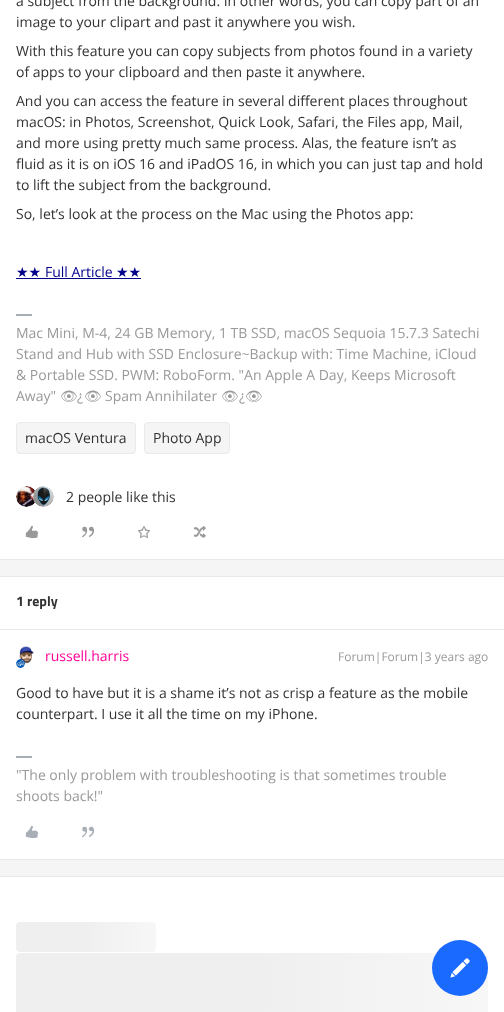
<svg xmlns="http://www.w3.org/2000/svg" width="504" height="1012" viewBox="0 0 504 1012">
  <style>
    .t1 { font: 14px Open Sans; fill: #333; }
    .t2 { font: 14px DejaVu Sans; fill: #00008b; }
    .t3 { font: 14px Open Sans; fill: #00008b; }
    .t4 { font: 14px Open Sans; fill: #999; }
    .t5 { font: 14px Noto Emoji; fill: #999; }
    .t6 { font: bold 14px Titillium; fill: #333; }
    .t7 { font: 14px Open Sans; fill: #f09; }
    .t8 { font: 12px Open Sans; fill: #999; }
  </style>
  <defs>
    <linearGradient id="g1" gradientUnits="userSpaceOnUse" x1="16" y1="937" x2="296" y2="937"><stop offset="0.25" stop-color="#efefef"/><stop offset="0.5" stop-color="#f7f7f7"/><stop offset="0.75" stop-color="#efefef"/></linearGradient>
    <linearGradient id="g2" gradientUnits="userSpaceOnUse" x1="16" y1="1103" x2="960" y2="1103"><stop offset="0.25" stop-color="#efefef"/><stop offset="0.5" stop-color="#f7f7f7"/><stop offset="0.75" stop-color="#efefef"/></linearGradient>
  </defs>
  <rect width="100%" height="100%" fill="#f5f5f5"/>
  <rect x="0" y="0" width="504" height="559" fill="#fff"/>
  <rect x="0" y="559" width="504" height="1" fill="#eaeaea"/>
  <text x="16" y="6" class="t1">a subject from the background. In other words, you can copy part of an</text>
  <text x="16" y="27" class="t1">image to your clipart and past it anywhere you wish.</text>
  <text x="16" y="56" class="t1">With this feature you can copy subjects from photos found in a variety</text>
  <text x="16" y="77" class="t1">of apps to your clipboard and then paste it anywhere.</text>
  <text x="16" y="106" class="t1">And you can access the feature in several different places throughout</text>
  <text x="16" y="127" class="t1">macOS: in Photos, Screenshot, Quick Look, Safari, the Files app, Mail,</text>
  <text x="16" y="148" class="t1">and more using pretty much same process. Alas, the feature isn’t as</text>
  <text x="16" y="169" class="t1">fluid as it is on iOS 16 and iPadOS 16, in which you can just tap and hold</text>
  <text x="16" y="190" class="t1">to lift the subject from the background.</text>
  <text x="16" y="219" class="t1">So, let’s look at the process on the Mac using the Photos app:</text>
  <text x="16" y="277" class="t2">★★</text>
  <rect x="16" y="278" width="125" height="1" fill="#00008b"/>
  <text x="45" y="277" class="t3">Full Article</text>
  <text x="116" y="277" class="t2">★★</text>
  <rect x="16" y="314" width="16" height="2" fill="#a7aeb5"/>
  <text x="16" y="338" class="t4">Mac Mini, M-4, 24 GB Memory, 1 TB SSD, macOS Sequoia 15.7.3 Satechi</text>
  <text x="16" y="359" class="t4">Stand and Hub with SSD Enclosure~Backup with: Time Machine, iCloud</text>
  <text x="16" y="380" class="t4">&amp; Portable SSD. PWM: RoboForm. "An Apple A Day, Keeps Microsoft</text>
  <text x="16" y="401" class="t4">Away"</text>
  <text x="60" y="401" class="t5">👁</text>
  <text x="77" y="401" class="t4">¿</text>
  <text x="84" y="401" class="t5">👁</text>
  <text x="105" y="401" class="t4">Spam Annihilater</text>
  <text x="221" y="401" class="t5">👁</text>
  <text x="239" y="401" class="t4">¿</text>
  <text x="245" y="401" class="t5">👁</text>
  <rect x="16.5" y="422.5" width="119" height="31" rx="3.5" fill="#f5f5f5" stroke="#eaeaea"/>
  <text x="25" y="443" class="t1">macOS Ventura</text>
  <rect x="144.5" y="422.5" width="85" height="31" rx="3.5" fill="#f5f5f5" stroke="#eaeaea"/>
  <text x="153" y="443" class="t1">Photo App</text>
  <image x="16" y="486" width="19" height="21" href="images/1.png"/>
  <circle cx="43.5" cy="496.5" r="10.5" fill="#fff"/>
  <image x="33" y="486" width="21" height="21" href="images/2.png"/>
  <text x="66" y="502" class="t1">2 people like this</text>
  <image x="25" y="525" width="14" height="14" href="images/3.png"/>
  <image x="82" y="526" width="13" height="12" href="images/4.png"/>
  <image x="138" y="526" width="12" height="13" href="images/5.png"/>
  <image x="193" y="525" width="13" height="13" href="images/6.png"/>
  <rect x="0" y="577" width="504" height="282" fill="#fff"/>
  <rect x="0" y="576" width="504" height="1" fill="#eaeaea"/>
  <rect x="0" y="859" width="504" height="1" fill="#eaeaea"/>
  <rect x="0" y="629" width="504" height="1" fill="#eaeaea"/>
  <text x="16" y="606" class="t6">1 reply</text>
  <image x="19" y="646" width="15" height="18" href="images/7.png"/>
  <image x="16" y="659" width="9" height="9" href="images/8.png"/>
  <text x="45" y="661" class="t7">russell.harris</text>
  <text x="338" y="661" class="t8">Forum|Forum|3 years ago</text>
  <text x="16" y="698" class="t1">Good to have but it is a shame it’s not as crisp a feature as the mobile</text>
  <text x="16" y="719" class="t1">counterpart. I use it all the time on my iPhone.</text>
  <rect x="16" y="756" width="16" height="2" fill="#a7aeb5"/>
  <text x="16" y="780" class="t4">"The only problem with troubleshooting is that sometimes trouble</text>
  <text x="16" y="801" class="t4">shoots back!"</text>
  <image x="25" y="825" width="14" height="14" href="images/9.png"/>
  <image x="82" y="826" width="13" height="12" href="images/10.png"/>
  <rect x="0" y="877" width="504" height="135" fill="#fff"/>
  <rect x="0" y="876" width="504" height="1" fill="#eaeaea"/>
  <rect x="16" y="922" width="140" height="30" rx="4" fill="url(#g1)"/>
  <rect x="16" y="953" width="472" height="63" rx="4" fill="url(#g2)"/>
  <circle cx="460" cy="968" r="28" fill="#1a6aff"/>
  <image x="450" y="958" width="20" height="20" href="images/11.png"/>
</svg>
